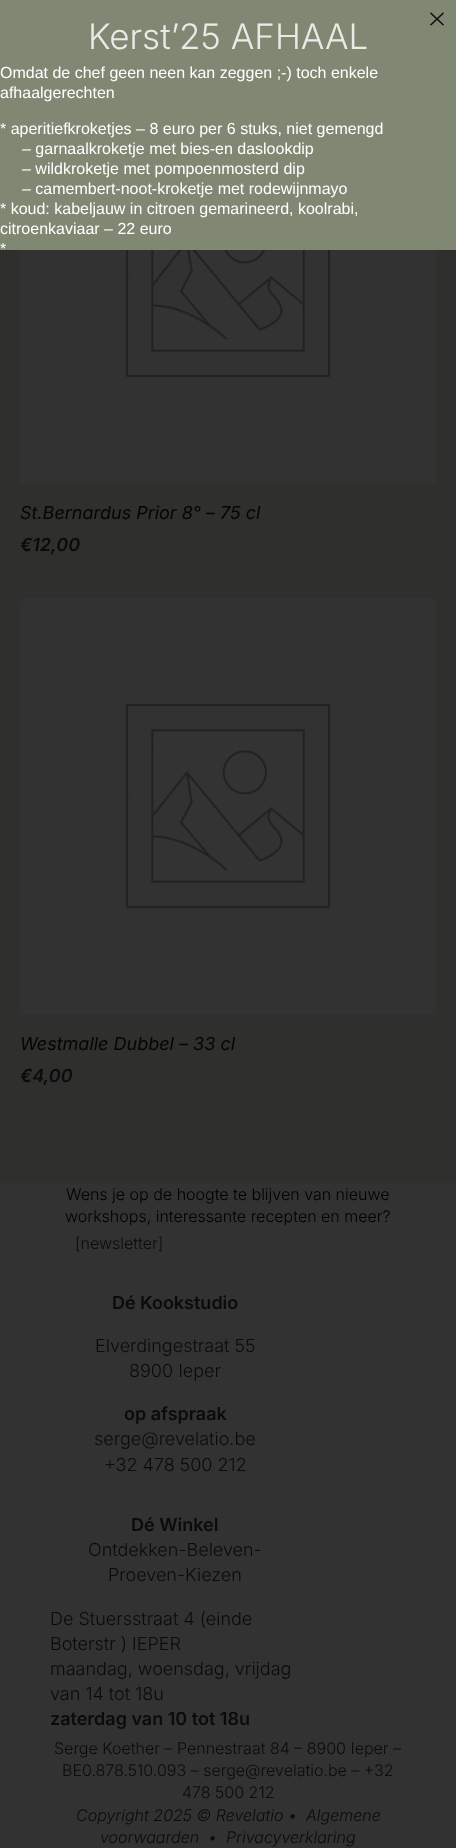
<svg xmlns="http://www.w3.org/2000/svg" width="456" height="1848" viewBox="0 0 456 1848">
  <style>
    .t1 { font: 300 35px Inter; fill: #eaebe7; }
    .t2 { font: 16px Liberation Sans; fill: #fff; }
    .t3 { font: italic 18px Inter; fill: #080401; }
    .t4 { font: italic 600 18px Inter; fill: #0b0b0b; }
    .t5 { font: 300 16px Inter; fill: #000; }
    .t6 { font: 300 16px Inter; fill: #0b0b0b; }
    .t7 { font: 600 18px Inter; fill: #0b0b0b; }
    .t8 { font: 300 18px Inter; fill: #0b0b0b; }
    .t9 { font: italic 300 16px Inter; fill: #0b0b0b; }
  </style>
  <rect width="100%" height="100%" fill="#2f2f2e"/>
  <rect x="0" y="0" width="456" height="250" fill="#808873"/>
  <image x="430" y="12" width="14" height="14" href="images/1.png"/>
  <text x="88" y="49" class="t1">Kerst’25 AFHAAL</text>
  <text x="0" y="78" class="t2">Omdat de chef geen neen kan zeggen ;-) toch enkele</text>
  <text x="0" y="98" class="t2">afhaalgerechten</text>
  <text x="0" y="134" class="t2">* aperitiefkroketjes – 8 euro per 6 stuks, niet gemengd</text>
  <text x="22" y="154" class="t2">– garnaalkroketje met bies-en daslookdip</text>
  <text x="22" y="174" class="t2">– wildkroketje met pompoenmosterd dip</text>
  <text x="22" y="194" class="t2">– camembert-noot-kroketje met rodewijnmayo</text>
  <text x="0" y="214" class="t2">* koud: kabeljauw in citroen gemarineerd, koolrabi,</text>
  <text x="0" y="234" class="t2">citroenkaviaar – 22 euro</text>
  <text x="0" y="254" class="t2">*</text>
  <image x="20" y="250" width="416" height="233" href="images/2.png"/>
  <text x="20" y="519" class="t3">St.Bernardus Prior 8° – 75 cl</text>
  <text x="20" y="551" class="t4">€12,00</text>
  <image x="20" y="598" width="416" height="416" href="images/3.png"/>
  <text x="20" y="1050" class="t3">Westmalle Dubbel – 33 cl</text>
  <text x="20" y="1082" class="t4">€4,00</text>
  <rect x="0" y="1183" width="456" height="665" fill="#323232"/>
  <text x="66" y="1200" class="t5">Wens je op de hoogte te blijven van nieuwe</text>
  <text x="65" y="1222" class="t5">workshops, interessante recepten en meer?</text>
  <text x="75" y="1249" class="t6">[newsletter]</text>
  <text x="112" y="1309" class="t7">Dé</text>
  <text x="140" y="1309" class="t7">Kookstudio</text>
  <text x="95" y="1352" class="t8">Elverdingestraat 55</text>
  <text x="129" y="1377" class="t8">8900 Ieper</text>
  <text x="124" y="1420" class="t7">op afspraak</text>
  <text x="94" y="1445" class="t8">serge@revelatio.be</text>
  <text x="104" y="1471" class="t8">+32 478 500 212</text>
  <text x="131" y="1531" class="t7">Dé Winkel</text>
  <text x="88" y="1556" class="t8">Ontdekken-Beleven-</text>
  <text x="108" y="1581" class="t8">Proeven-Kiezen</text>
  <text x="50" y="1625" class="t8">De Stuersstraat 4 (einde</text>
  <text x="50" y="1650" class="t8">Boterstr ) IEPER</text>
  <text x="50" y="1675" class="t8">maandag, woensdag, vrijdag</text>
  <text x="50" y="1700" class="t8">van 14 tot 18u</text>
  <text x="50" y="1725" class="t7">zaterdag van 10 tot 18u</text>
  <text x="54" y="1754" class="t6">Serge Koether – Pennestraat 84 – 8900 Ieper –</text>
  <text x="62" y="1776" class="t6">BE0.878.510.093 – serge@revelatio.be – +32</text>
  <text x="182" y="1798" class="t6">478 500 212</text>
  <text x="76" y="1821" class="t9">Copyright 2025 © Revelatio •</text>
  <text x="306" y="1821" class="t9">Algemene</text>
  <text x="100" y="1843" class="t9">voorwaarden</text>
  <text x="208" y="1843" class="t9">•</text>
  <text x="226" y="1843" class="t9">Privacyverklaring</text>
</svg>
